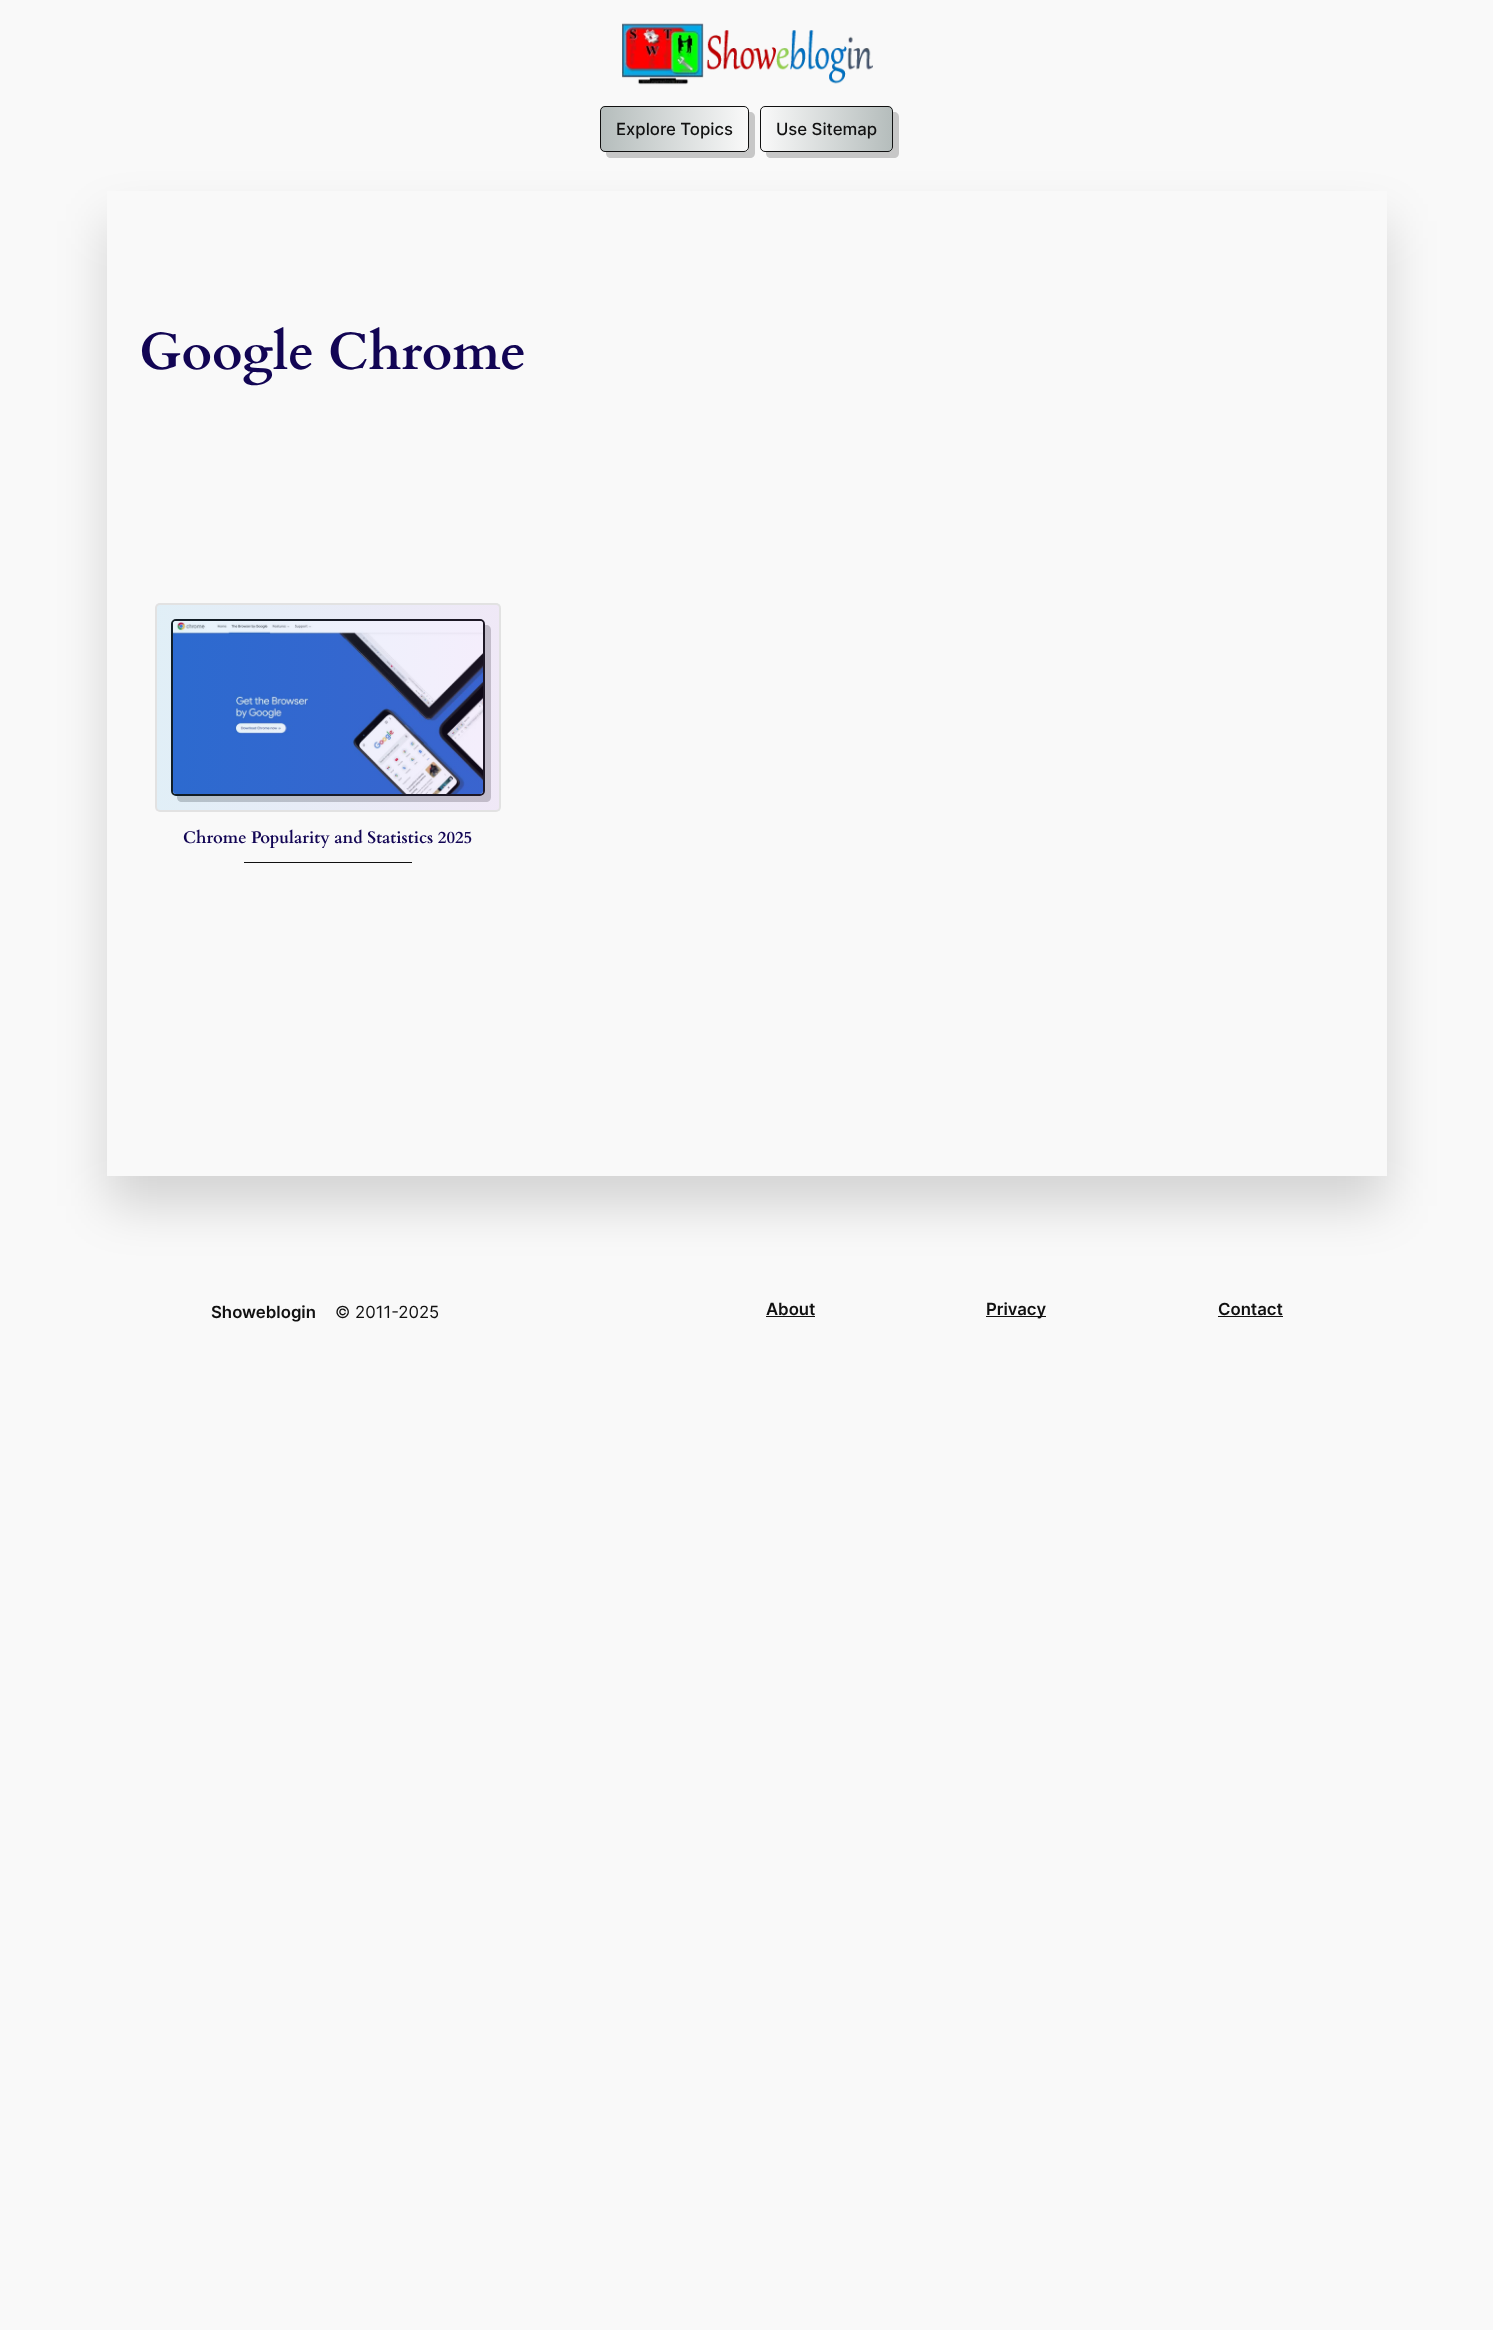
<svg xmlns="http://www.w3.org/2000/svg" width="1493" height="2330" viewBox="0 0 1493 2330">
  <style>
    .t1 { font: 500 16.75px Inter; fill: #111; }
    .t2 { font: bold 52.25px Cardo; fill: #120554; }
    .t3 { font: bold 16.75px Cardo; fill: #120554; }
    .t4 { font: 600 16.75px Inter; fill: #111; }
    .t5 { font: 16.75px Inter; fill: #111; }
  </style>
  <defs>
    <clipPath id="clip1"><rect x="600" y="106" width="149" height="46" rx="5"/></clipPath>
    <linearGradient id="g1" gradientUnits="userSpaceOnUse" x1="601" y1="129" x2="748" y2="129"><stop offset="0" stop-color="#b5bdbc"/><stop offset="1" stop-color="#f9f9f9"/></linearGradient>
    <clipPath id="clip2"><rect x="760" y="106" width="133" height="46" rx="5"/></clipPath>
    <linearGradient id="g2" gradientUnits="userSpaceOnUse" x1="892" y1="129" x2="761" y2="129"><stop offset="0" stop-color="#b5bdbc"/><stop offset="1" stop-color="#f9f9f9"/></linearGradient>
    <clipPath id="clip3"><path d="M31 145H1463V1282H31ZM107 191H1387V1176H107Z" clip-rule="evenodd"/></clipPath>
    <clipPath id="clip4"><rect x="155" y="603" width="346" height="209" rx="5"/></clipPath>
    <linearGradient id="g3" gradientUnits="userSpaceOnUse" x1="-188" y1="496" x2="160" y2="509"><stop offset="0" stop-color="#e1eff7"/><stop offset="1" stop-color="#f0e8f6"/></linearGradient>
    <linearGradient id="g4" gradientUnits="userSpaceOnUse" x1="496" y1="496" x2="844" y2="509"><stop offset="0" stop-color="#e1eff7"/><stop offset="1" stop-color="#f0e8f6"/></linearGradient>
    <linearGradient id="g5" gradientUnits="userSpaceOnUse" x1="154" y1="701" x2="502" y2="714"><stop offset="0" stop-color="#0693e3" stop-opacity="0.1"/><stop offset="1" stop-color="#9b51e0" stop-opacity="0.1"/></linearGradient>
    <linearGradient id="g6" gradientUnits="userSpaceOnUse" x1="-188" y1="906" x2="160" y2="919"><stop offset="0" stop-color="#e1eff7"/><stop offset="1" stop-color="#f0e8f6"/></linearGradient>
    <linearGradient id="g7" gradientUnits="userSpaceOnUse" x1="496" y1="906" x2="844" y2="919"><stop offset="0" stop-color="#e1eff7"/><stop offset="1" stop-color="#f0e8f6"/></linearGradient>
  </defs>
  <rect width="100%" height="100%" fill="#f9f9f9"/>
  <image x="622" y="23" width="251" height="62" href="images/1.png"/>
  <path d="M606 152V153C606 156 608 158 611 158H750C753 158 755 156 755 153V117C755 114 753 112 750 112H749V147C749 150 747 152 744 152Z" fill="#c7c7c7"/>
  <g clip-path="url(#clip1)">
    <rect x="601" y="106" width="147" height="46" fill="url(#g1)"/>
  </g>
  <rect x="600.5" y="106.5" width="148" height="45" rx="4.5" fill="none" stroke="#111"/>
  <text x="616" y="135" class="t1">Explore Topics</text>
  <path d="M766 152V153C766 156 768 158 771 158H894C897 158 899 156 899 153V117C899 114 897 112 894 112H893V147C893 150 891 152 888 152Z" fill="#c7c7c7"/>
  <g clip-path="url(#clip2)">
    <rect x="761" y="106" width="131" height="46" fill="url(#g2)"/>
  </g>
  <rect x="760.5" y="106.5" width="132" height="45" rx="4.5" fill="none" stroke="#111"/>
  <text x="776" y="135" class="t1">Use Sitemap</text>
  <g clip-path="url(#clip3)">
    <rect x="107" y="221" width="1280" height="985" fill="#01010126" filter="blur(25px)"/>
  </g>
  <text x="139" y="369" class="t2">Google Chrome</text>
  <g clip-path="url(#clip4)">
    <rect x="155" y="604" width="2" height="1" fill="url(#g3)"/>
    <rect x="499" y="604" width="2" height="1" fill="url(#g4)"/>
  </g>
  <path d="M177 796V797C177 800 179 802 182 802H486C489 802 491 800 491 797V630C491 627 489 625 486 625H485V791C485 794 483 796 480 796Z" fill="#c7c7c7"/>
  <rect x="172" y="620" width="312" height="175" rx="4" fill="none" stroke="#111" stroke-width="2"/>
  <image x="173" y="621" width="310" height="173" href="images/2.png"/>
  <rect x="157" y="605" width="342" height="205" fill="url(#g5)"/>
  <g clip-path="url(#clip4)">
    <rect x="155" y="810" width="2" height="1" fill="url(#g6)"/>
    <rect x="499" y="810" width="2" height="1" fill="url(#g7)"/>
  </g>
  <rect x="156" y="604" width="344" height="207" rx="4" fill="none" stroke="#e2e2e2" stroke-width="2"/>
  <text x="183" y="843" class="t3">Chrome Popularity and Statistics 2025</text>
  <rect x="244" y="862" width="168" height="1" fill="#111"/>
  <text x="211" y="1318" class="t4">Showeblogin</text>
  <text x="335" y="1318" class="t5">© 2011-2025</text>
  <text x="766" y="1315" class="t4">About</text>
  <rect x="766" y="1316" width="49" height="1" fill="#111"/>
  <rect x="986" y="1316" width="60" height="1" fill="#111"/>
  <text x="986" y="1315" class="t4">Privacy</text>
  <text x="1218" y="1315" class="t4">Contact</text>
  <rect x="1218" y="1316" width="65" height="1" fill="#111"/>
</svg>
